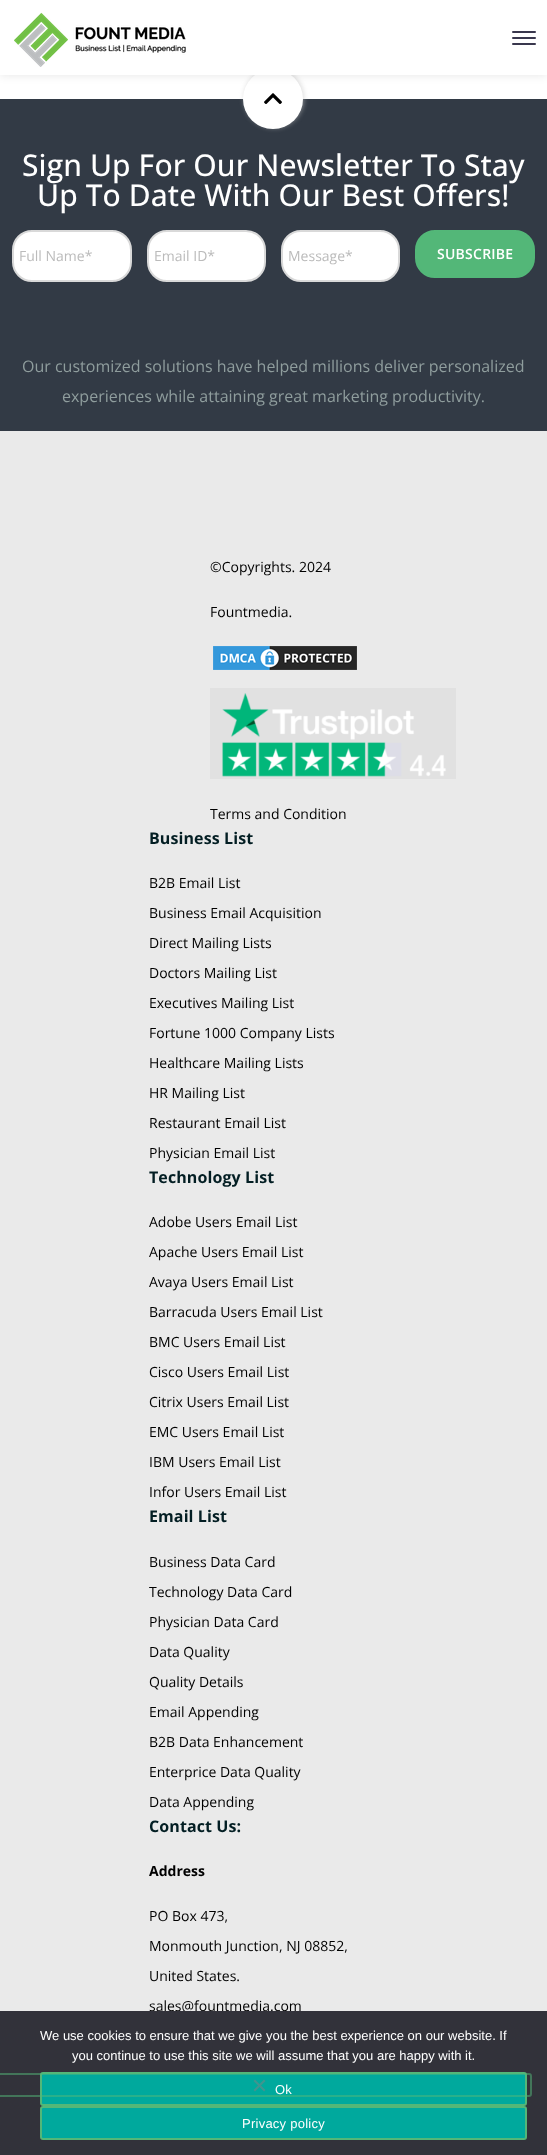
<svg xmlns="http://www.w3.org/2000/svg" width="547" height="2155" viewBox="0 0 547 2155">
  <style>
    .t1 { font: 500 30px Open Sans; letter-spacing: 0.1px; fill: #fff; }
    .t2 { font: 14px Open Sans; fill: #bbb; }
    .t3 { font: 600 14px Open Sans; letter-spacing: 0.25px; fill: #fff; }
    .t4 { font: 16px Open Sans; fill: #8f9d9d; }
    .t5 { font: 14px Open Sans; fill: #000; }
    .t6 { font: bold 16px Open Sans; letter-spacing: 0.1px; fill: #031e23; }
    .t7 { font: bold 14px Open Sans; fill: #000; }
    .t8 { font: 13px Liberation Sans; fill: #fff; }
    .t9 { font: 13px Liberation Sans; letter-spacing: 0.25px; fill: #fff; }
  </style>
  <rect width="100%" height="100%" fill="#fff"/>
  <rect x="0" y="99" width="547" height="332" fill="#323a45"/>
  <rect x="244" y="68" width="60" height="60" rx="30" fill="#c6c6c696" filter="blur(2.5px)"/>
  <circle cx="273" cy="99" r="30" fill="#fff"/>
  <rect x="0" y="0" width="547" height="75" fill="#0000001a" filter="blur(5px)"/>
  <rect x="0" y="0" width="547" height="75" fill="#fff"/>
  <image x="14" y="12" width="172" height="55" href="images/1.png"/>
  <rect x="512" y="31" width="24" height="2" rx="1" fill="#39374d"/>
  <rect x="512" y="37" width="24" height="2" rx="1" fill="#39374d"/>
  <rect x="512" y="43" width="24" height="2" rx="1" fill="#39374d"/>
  <image x="264" y="93" width="18" height="11" href="images/2.png"/>
  <text x="22" y="176" class="t1">Sign Up For Our Newsletter To Stay</text>
  <text x="37" y="206" class="t1">Up To Date With Our Best Offers!</text>
  <rect x="13" y="231" width="118" height="50" rx="19" fill="#fff" stroke="#d9d9d9" stroke-width="2"/>
  <text x="19" y="261" class="t2">Full Name*</text>
  <rect x="148" y="231" width="117" height="50" rx="19" fill="#fff" stroke="#d9d9d9" stroke-width="2"/>
  <text x="154" y="261" class="t2">Email ID*</text>
  <rect x="282" y="231" width="117" height="50" rx="19" fill="#fff" stroke="#d9d9d9" stroke-width="2"/>
  <text x="288" y="261" class="t2">Message*</text>
  <rect x="416" y="231" width="118" height="46" rx="19" fill="#53b778" stroke="#53b778" stroke-width="2"/>
  <text x="437" y="259" class="t3">SUBSCRIBE</text>
  <text x="22" y="372" class="t4">Our customized solutions have helped millions deliver personalized</text>
  <text x="62" y="402" class="t4">experiences while attaining great marketing productivity.</text>
  <rect x="0" y="431" width="547" height="1580" fill="#eaeaea"/>
  <text x="210" y="572" class="t5">©Copyrights. 2024</text>
  <text x="210" y="617" class="t5">Fountmedia.</text>
  <image x="213" y="646" width="144" height="24" href="images/3.png"/>
  <image x="210" y="688" width="246" height="91" href="images/4.png"/>
  <text x="210" y="819" class="t5">Terms and Condition</text>
  <text x="149" y="844" class="t6">Business List</text>
  <text x="149" y="888" class="t5">B2B Email List</text>
  <text x="149" y="918" class="t5">Business Email Acquisition</text>
  <text x="149" y="948" class="t5">Direct Mailing Lists</text>
  <text x="149" y="978" class="t5">Doctors Mailing List</text>
  <text x="149" y="1008" class="t5">Executives Mailing List</text>
  <text x="149" y="1038" class="t5">Fortune 1000 Company Lists</text>
  <text x="149" y="1068" class="t5">Healthcare Mailing Lists</text>
  <text x="149" y="1098" class="t5">HR Mailing List</text>
  <text x="149" y="1128" class="t5">Restaurant Email List</text>
  <text x="149" y="1158" class="t5">Physician Email List</text>
  <text x="149" y="1183" class="t6">Technology List</text>
  <text x="149" y="1227" class="t5">Adobe Users Email List</text>
  <text x="149" y="1257" class="t5">Apache Users Email List</text>
  <text x="149" y="1287" class="t5">Avaya Users Email List</text>
  <text x="149" y="1317" class="t5">Barracuda Users Email List</text>
  <text x="149" y="1347" class="t5">BMC Users Email List</text>
  <text x="149" y="1377" class="t5">Cisco Users Email List</text>
  <text x="149" y="1407" class="t5">Citrix Users Email List</text>
  <text x="149" y="1437" class="t5">EMC Users Email List</text>
  <text x="149" y="1467" class="t5">IBM Users Email List</text>
  <text x="149" y="1497" class="t5">Infor Users Email List</text>
  <text x="149" y="1522" class="t6">Email List</text>
  <text x="149" y="1567" class="t5">Business Data Card</text>
  <text x="149" y="1597" class="t5">Technology Data Card</text>
  <text x="149" y="1627" class="t5">Physician Data Card</text>
  <text x="149" y="1657" class="t5">Data Quality</text>
  <text x="149" y="1687" class="t5">Quality Details</text>
  <text x="149" y="1717" class="t5">Email Appending</text>
  <text x="149" y="1747" class="t5">B2B Data Enhancement</text>
  <text x="149" y="1777" class="t5">Enterprice Data Quality</text>
  <text x="149" y="1807" class="t5">Data Appending</text>
  <text x="149" y="1832" class="t6">Contact Us:</text>
  <text x="149" y="1876" class="t7">Address</text>
  <text x="149" y="1921" class="t5">PO Box 473,</text>
  <text x="149" y="1951" class="t5">Monmouth Junction, NJ 08852,</text>
  <text x="149" y="1981" class="t5">United States.</text>
  <text x="149" y="2011" class="t5">sales@fountmedia.com</text>
  <rect x="0" y="2011" width="547" height="144" fill="#32323a"/>
  <text x="40" y="2040" class="t8">We use cookies to ensure that we give you the best experience on our website. If</text>
  <text x="72" y="2060" class="t8">you continue to use this site we will assume that you are happy with it.</text>
  <rect x="41" y="2073" width="485" height="32" rx="2" fill="#00a99d" stroke="#53b778" stroke-width="2"/>
  <rect x="-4" y="2074" width="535" height="22" rx="2" fill="none" stroke="#53b77880" stroke-width="2"/>
  <path d="M264 2079.5L265.5 2081L255 2091.5L253.5 2090Z" fill="#40958f"/>
  <path d="M253.5 2081L255 2079.5L265.5 2090L264 2091.5Z" fill="#40958f"/>
  <text x="275" y="2094" class="t9">Ok</text>
  <rect x="41" y="2107" width="485" height="32" rx="2" fill="#00a99d" stroke="#53b778" stroke-width="2"/>
  <text x="242" y="2128" class="t9">Privacy policy</text>
</svg>
